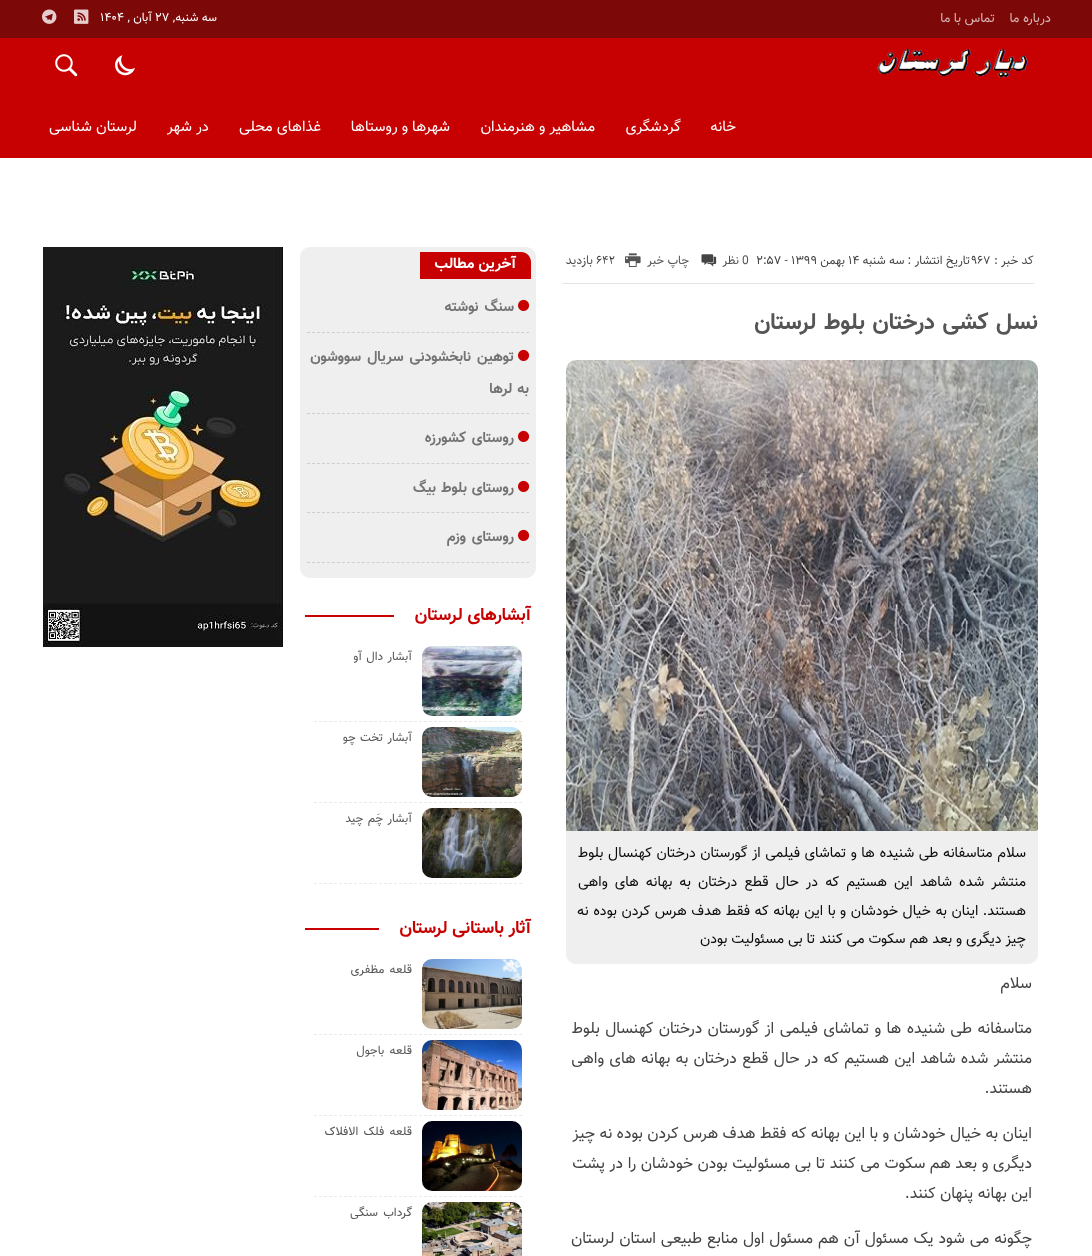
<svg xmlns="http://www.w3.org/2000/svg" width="1092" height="1256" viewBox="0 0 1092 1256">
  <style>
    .t1 { font: 13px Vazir; direction: rtl; fill: #d8b5b5; }
    .t2 { font: 12px Vazir; direction: rtl; fill: #fff; }
    .t3 { font: 12px Vazir; fill: #fff; }
    .t4 { font: 15px Vazir; direction: rtl; fill: #fff; }
    .t5 { font: 12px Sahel; direction: rtl; fill: #444; }
    .t6 { font: 12px Sahel; fill: #444; }
    .t7 { font: 12px Vazir; direction: rtl; fill: #444; }
    .t8 { font: 12px Vazir; fill: #444; }
    .t9 { font: 12px Vazir; fill: #555; }
    .t10 { font: 12px Vazir; direction: rtl; fill: #555; }
    .t11 { font: bold 22.75px Vazir; letter-spacing: -0.2px; direction: rtl; fill: #555; }
    .t12 { font: 14.4px Vazir; direction: rtl; fill: #0c0c0c; }
    .t13 { font: 15.85px Vazir; direction: rtl; fill: #444; }
    .t14 { font: bold 15px Vazir; direction: rtl; fill: #fff; }
    .t15 { font: bold 14.5px Vazir; letter-spacing: -0.2px; direction: rtl; fill: #737373; }
    .t16 { font: bold 17.5px Vazir; direction: rtl; fill: #c70102; }
    .t17 { font: 12px Vazir; letter-spacing: -0.2px; direction: rtl; fill: #555; }
  </style>
  <rect width="100%" height="100%" fill="#fff"/>
  <rect x="0" y="0" width="1092" height="38" fill="#7d0808"/>
  <text x="1051" y="22" class="t1">درباره ما</text>
  <text x="995" y="22" class="t1">تماس با ما</text>
  <text x="217" y="21" class="t2">سه شنبه,</text>
  <text x="155" y="21" class="t3">۲۷</text>
  <text x="152" y="21" class="t2">آبان ,</text>
  <text x="100" y="21" class="t3">۱۴۰۴</text>
  <image x="74" y="9" width="15" height="15" href="images/1.png"/>
  <image x="42" y="9" width="15" height="15" href="images/2.png"/>
  <rect x="0" y="38" width="1092" height="120" fill="#c70102"/>
  <image x="877" y="49" width="151" height="29" href="images/3.png"/>
  <image x="115" y="55" width="20" height="21" href="images/4.png"/>
  <image x="55" y="54" width="23" height="23" href="images/5.png"/>
  <text x="736" y="131" class="t4">خانه</text>
  <text x="681" y="131" class="t4">گردشگری</text>
  <text x="595" y="131" class="t4">مشاهیر و هنرمندان</text>
  <text x="450" y="131" class="t4">شهرها و روستاها</text>
  <text x="321" y="131" class="t4">غذاهای محلی</text>
  <text x="209" y="131" class="t4">در شهر</text>
  <text x="137" y="131" class="t4">لرستان شناسی</text>
  <text x="1034" y="264" class="t5">کد خبر :</text>
  <text x="971" y="264" class="t6">967</text>
  <text x="970" y="264" class="t7">تاریخ انتشار : سه شنبه</text>
  <text x="848" y="264" class="t8">۱۴</text>
  <text x="845" y="264" class="t7">بهمن</text>
  <text x="756" y="264" class="t8">۲:۵۷ - ۱۳۹۹</text>
  <text x="742" y="264" class="t9">0</text>
  <text x="739" y="264" class="t10">نظر</text>
  <image x="701" y="254" width="16" height="13" href="images/6.png"/>
  <text x="689" y="264" class="t10">چاپ خبر</text>
  <image x="625" y="253" width="16" height="14" href="images/7.png"/>
  <text x="596" y="264" class="t6">642</text>
  <text x="593" y="264" class="t5">بازدید</text>
  <rect x="562" y="283" width="472" height="1" fill="#e5e5e5"/>
  <text x="1038" y="329" word-spacing="1.5" class="t11">نسل کشی درختان بلوط لرستان</text>
  <image x="566" y="360" width="472" height="471" href="images/8.png"/>
  <path d="M566 831H1038V954C1038 959.5 1033.5 964 1028 964H576C570.5 964 566 959.5 566 954Z" fill="#efefef"/>
  <text x="1026" y="857" word-spacing="0.6" class="t12">سلام متاسفانه طی شنیده ها و تماشای فیلمی از گورستان درختان کهنسال بلوط</text>
  <text x="1026" y="886" word-spacing="3.1" class="t12">منتشر شده شاهد این هستیم که در حال قطع درختان به بهانه های واهی</text>
  <text x="1026" y="915" word-spacing="0.6" class="t12">هستند. اینان به خیال خودشان و با این بهانه که فقط هدف هرس کردن بوده نه</text>
  <text x="1026" y="943" class="t12">چیز دیگری و بعد هم سکوت می کنند تا بی مسئولیت بودن</text>
  <text x="1032" y="988" class="t13">سلام</text>
  <text x="1032" y="1033" word-spacing="1" class="t13">متاسفانه طی شنیده ها و تماشای فیلمی از گورستان درختان کهنسال بلوط</text>
  <text x="1032" y="1063" word-spacing="0.9" class="t13">منتشر شده شاهد این هستیم که در حال قطع درختان به بهانه های واهی</text>
  <text x="1032" y="1093" class="t13">هستند.</text>
  <text x="1032" y="1138" class="t13">اینان به خیال خودشان و با این بهانه که فقط هدف هرس کردن بوده نه چیز</text>
  <text x="1032" y="1168" word-spacing="0.25" class="t13">دیگری و بعد هم سکوت می کنند تا بی مسئولیت بودن خودشان را در پشت</text>
  <text x="1032" y="1198" class="t13">این بهانه پنهان کنند.</text>
  <text x="1032" y="1243" word-spacing="0.5" class="t13">چگونه می شود یک مسئول آن هم مسئول اول منابع طبیعی استان لرستان</text>
  <rect x="300" y="247" width="236" height="331" rx="10" fill="#efefef"/>
  <path d="M420 252H521C526.5 252 531 256.5 531 262V279H420Z" fill="#c70102"/>
  <text x="516" y="268" class="t14">آخرین مطالب</text>
  <path d="M307 332.5H529" fill="none" stroke="#cfcfd0" stroke-dasharray="3 1.98"/>
  <image x="518" y="299" width="12" height="12" href="images/9.png"/>
  <text x="514" y="311" word-spacing="2" class="t15">سنگ نوشته</text>
  <path d="M307 413.5H529" fill="none" stroke="#cfcfd0" stroke-dasharray="3 1.98"/>
  <image x="518" y="349" width="12" height="12" href="images/9.png"/>
  <text x="514" y="361" word-spacing="2" class="t15">توهین نابخشودنی سریال سووشون</text>
  <text x="529" y="393" word-spacing="1" class="t15">به لرها</text>
  <path d="M307 463.5H529" fill="none" stroke="#cfcfd0" stroke-dasharray="3 1.98"/>
  <image x="518" y="430" width="12" height="12" href="images/9.png"/>
  <text x="514" y="442" word-spacing="2" class="t15">روستای کشورزه</text>
  <path d="M307 512.5H529" fill="none" stroke="#cfcfd0" stroke-dasharray="3 1.98"/>
  <image x="518" y="480" width="12" height="12" href="images/9.png"/>
  <text x="514" y="492" word-spacing="1" class="t15">روستای بلوط بیگ</text>
  <path d="M307 562.5H529" fill="none" stroke="#cfcfd0" stroke-dasharray="3 1.98"/>
  <image x="518" y="529" width="12" height="12" href="images/9.png"/>
  <text x="514" y="541" word-spacing="2" class="t15">روستای وزم</text>
  <text x="531" y="620" class="t16">آبشارهای لرستان</text>
  <rect x="305" y="615" width="89" height="2" fill="#c70102"/>
  <path d="M314 721.5H522" fill="none" stroke="#e9e9e9" stroke-dasharray="3 2"/>
  <image x="422" y="646" width="100" height="70" href="images/10.png"/>
  <text x="412" y="660" word-spacing="1" class="t17">آبشار دال آو</text>
  <path d="M314 802.5H522" fill="none" stroke="#e9e9e9" stroke-dasharray="3 2"/>
  <image x="422" y="727" width="100" height="70" href="images/11.png"/>
  <text x="412" y="741" word-spacing="1" class="t17">آبشار تخت چو</text>
  <path d="M314 883.5H522" fill="none" stroke="#e9e9e9" stroke-dasharray="3 2"/>
  <image x="422" y="808" width="100" height="70" href="images/12.png"/>
  <text x="412" y="822" word-spacing="1" class="t17">آبشار چَم چید</text>
  <text x="531" y="933" class="t16">آثار باستانی لرستان</text>
  <rect x="305" y="928" width="74" height="2" fill="#c70102"/>
  <path d="M314 1034.5H522" fill="none" stroke="#e9e9e9" stroke-dasharray="3 2"/>
  <image x="422" y="959" width="100" height="70" href="images/13.png"/>
  <text x="412" y="973" word-spacing="2" class="t17">قلعه مظفری</text>
  <path d="M314 1115.5H522" fill="none" stroke="#e9e9e9" stroke-dasharray="3 2"/>
  <image x="422" y="1040" width="100" height="70" href="images/14.png"/>
  <text x="412" y="1054" word-spacing="2" class="t17">قلعه باجول</text>
  <path d="M314 1196.5H522" fill="none" stroke="#e9e9e9" stroke-dasharray="3 2"/>
  <image x="422" y="1121" width="100" height="70" href="images/15.png"/>
  <text x="412" y="1135" word-spacing="2" class="t17">قلعه فلک الافلاک</text>
  <image x="422" y="1202" width="100" height="54" href="images/16.png"/>
  <text x="412" y="1216" word-spacing="2" class="t17">گرداب سنگی</text>
  <image x="43" y="247" width="240" height="400" href="images/17.png"/>
</svg>
